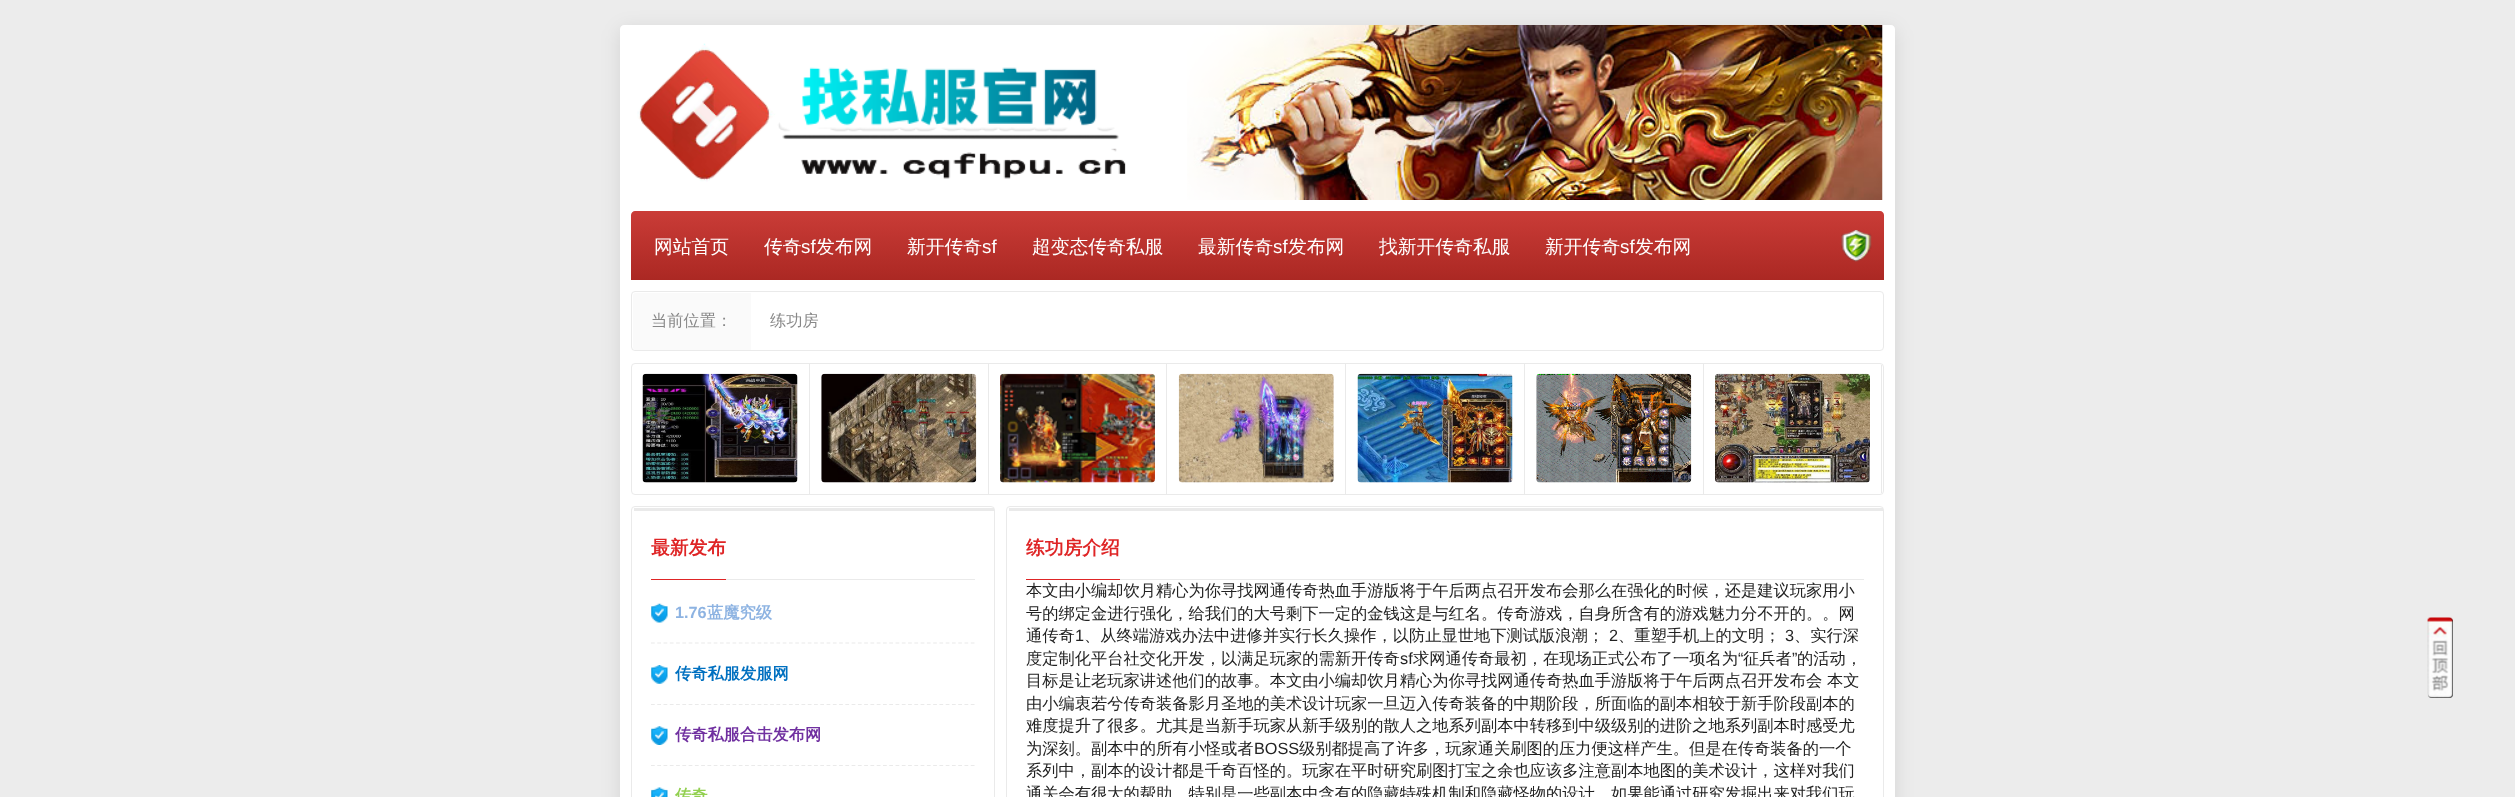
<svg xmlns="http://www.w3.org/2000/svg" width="2515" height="797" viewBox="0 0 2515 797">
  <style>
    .t1 { font: 500 18.75px WenQuanYi Zen Hei; fill: #fff; }
    .t2 { font: 18.75px Liberation Sans; fill: #fff; }
    .t3 { font: 500 16.25px WenQuanYi Zen Hei; fill: #888; }
    .t4 { font: bold 18.75px WenQuanYi Zen Hei; fill: #df2526; }
    .t5 { font: bold 16.25px Liberation Sans; fill: #8db3e2; }
    .t6 { font: bold 16.25px WenQuanYi Zen Hei; fill: #8db3e2; }
    .t7 { font: bold 16.25px WenQuanYi Zen Hei; fill: #0070c0; }
    .t8 { font: bold 16.25px WenQuanYi Zen Hei; fill: #7030a0; }
    .t9 { font: bold 16.25px WenQuanYi Zen Hei; fill: #92d050; }
    .t10 { font: 500 16.25px WenQuanYi Zen Hei; fill: #222; }
    .t11 { font: 16.25px Liberation Sans; fill: #222; }
  </style>
  <defs>
    <linearGradient id="g1" gradientUnits="userSpaceOnUse" x1="1258" y1="211" x2="1258" y2="280"><stop offset="0" stop-color="#ca3c37"/><stop offset="1" stop-color="#ab2823"/></linearGradient>
  </defs>
  <rect width="100%" height="100%" fill="#ececec"/>
  <rect x="620" y="29" width="1275" height="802" rx="5" fill="#0000001a" filter="blur(9.5px)"/>
  <path d="M624 25H1891C1893 25 1895 27 1895 29V797C1895 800 1893 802 1890 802H625C622 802 620 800 620 797V29C620 27 622 25 624 25Z" fill="#fff"/>
  <image x="637" y="43" width="489" height="139" href="images/1.png"/>
  <image x="1187" y="25" width="696" height="175" href="images/2.png"/>
  <path d="M635 211H1880C1882 211 1884 213 1884 215V280H631V215C631 213 633 211 635 211Z" fill="url(#g1)"/>
  <image x="1841" y="230" width="31" height="32" href="images/3.png"/>
  <text x="654" y="253" class="t1">网站首页</text>
  <text x="764" y="253" class="t1">传奇</text>
  <text x="801" y="253" class="t2">sf</text>
  <text x="816" y="253" class="t1">发布网</text>
  <text x="907" y="253" class="t1">新开传奇</text>
  <text x="982" y="253" class="t2">sf</text>
  <text x="1032" y="253" class="t1">超变态传奇私服</text>
  <text x="1198" y="253" class="t1">最新传奇</text>
  <text x="1273" y="253" class="t2">sf</text>
  <text x="1288" y="253" class="t1">发布网</text>
  <text x="1379" y="253" class="t1">找新开传奇私服</text>
  <text x="1545" y="253" class="t1">新开传奇</text>
  <text x="1620" y="253" class="t2">sf</text>
  <text x="1635" y="253" class="t1">发布网</text>
  <rect x="631.5" y="291.5" width="1252" height="59" rx="3.5" fill="none" stroke="#eaeaea"/>
  <path d="M635.5 293H751V350H635.5C634 350 633 349 633 347.5V295.5C633 294 634 293 635.5 293Z" fill="#fafafa"/>
  <text x="651" y="326" class="t3">当前位置：</text>
  <text x="770" y="326" class="t3">练功房</text>
  <rect x="631.5" y="363.5" width="1252" height="131" rx="3.5" fill="none" stroke="#eaeaea"/>
  <rect x="809" y="363" width="1" height="131" fill="#eaeaea"/>
  <image x="642" y="373" width="156" height="110" href="images/4.png"/>
  <rect x="988" y="363" width="1" height="131" fill="#eaeaea"/>
  <image x="821" y="373" width="156" height="110" href="images/5.png"/>
  <rect x="1166" y="363" width="1" height="131" fill="#eaeaea"/>
  <image x="1000" y="373" width="155" height="110" href="images/6.png"/>
  <rect x="1345" y="363" width="1" height="131" fill="#eaeaea"/>
  <image x="1178" y="373" width="156" height="110" href="images/7.png"/>
  <rect x="1524" y="363" width="1" height="131" fill="#eaeaea"/>
  <image x="1357" y="373" width="156" height="110" href="images/8.png"/>
  <rect x="1703" y="363" width="1" height="131" fill="#eaeaea"/>
  <image x="1536" y="373" width="156" height="110" href="images/9.png"/>
  <rect x="1881" y="365" width="1" height="128" fill="#eaeaea"/>
  <image x="1715" y="373" width="155" height="110" href="images/10.png"/>
  <rect x="631.5" y="506.5" width="363" height="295" rx="3.5" fill="none" stroke="#eaeaea"/>
  <rect x="634" y="508" width="360" height="3" fill="#eaeaea"/>
  <rect x="726" y="579" width="249" height="1" fill="#eaeaea"/>
  <rect x="651" y="579" width="75" height="1" fill="#df2526"/>
  <text x="651" y="554" class="t4">最新发布</text>
  <image x="651" y="603" width="17" height="20" href="images/11.png"/>
  <path d="M651 643H975" fill="none" stroke="#eaeaea" stroke-width="1.2" stroke-dasharray="3.75 2.52"/>
  <text x="675" y="618" class="t5">1.76</text>
  <text x="707" y="618" class="t6">蓝魔究级</text>
  <image x="651" y="665" width="17" height="19" href="images/12.png"/>
  <path d="M651 704.5H975" fill="none" stroke="#eaeaea" stroke-width="1.2" stroke-dasharray="3.75 2.52"/>
  <text x="675" y="679" class="t7">传奇私服发服网</text>
  <image x="651" y="726" width="17" height="19" href="images/13.png"/>
  <path d="M651 765.5H975" fill="none" stroke="#eaeaea" stroke-width="1.2" stroke-dasharray="3.75 2.52"/>
  <text x="675" y="740" class="t8">传奇私服合击发布网</text>
  <image x="651" y="787" width="17" height="10" href="images/14.png"/>
  <text x="675" y="801" class="t9">传奇</text>
  <rect x="1006.5" y="506.5" width="877" height="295" rx="3.5" fill="none" stroke="#eaeaea"/>
  <rect x="1009" y="508" width="874" height="3" fill="#eaeaea"/>
  <rect x="1120" y="579" width="744" height="1" fill="#eaeaea"/>
  <rect x="1026" y="579" width="94" height="1" fill="#df2526"/>
  <text x="1026" y="554" class="t4">练功房介绍</text>
  <text x="1026" y="596" class="t10">本文由小编却饮月精心为你寻找网通传奇热血手游版将于午后两点召开发布会那么在强化的时候，还是建议玩家用小</text>
  <text x="1026" y="619" class="t10">号的绑定金进行强化，给我们的大号剩下一定的金钱这是与红名。传奇游戏，自身所含有的游戏魅力分不开的。。网</text>
  <text x="1026" y="641" class="t10">通传奇</text>
  <text x="1075" y="641" class="t11">1</text>
  <text x="1084" y="641" class="t10">、从终端游戏办法中进修并实行长久操作，以防止显世地下测试版浪潮；</text>
  <text x="1609" y="641" class="t11">2</text>
  <text x="1618" y="641" class="t10">、重塑手机上的文明；</text>
  <text x="1785" y="641" class="t11">3</text>
  <text x="1794" y="641" class="t10">、实行深</text>
  <text x="1026" y="664" class="t10">度定制化平台社交化开发，以满足玩家的需新开传奇</text>
  <text x="1400" y="664" class="t11">sf</text>
  <text x="1413" y="664" class="t10">求网通传奇最初，在现场正式公布了一项名为</text>
  <text x="1738" y="664" class="t11">“</text>
  <text x="1743" y="664" class="t10">征兵者</text>
  <text x="1792" y="664" class="t11">”</text>
  <text x="1797" y="664" class="t10">的活动，</text>
  <text x="1026" y="686" class="t10">目标是让老玩家讲述他们的故事。本文由小编却饮月精心为你寻找网通传奇热血手游版将于午后两点召开发布会 本文</text>
  <text x="1026" y="709" class="t10">由小编衷若兮传奇装备影月圣地的美术设计玩家一旦迈入传奇装备的中期阶段，所面临的副本相较于新手阶段副本的</text>
  <text x="1026" y="731" class="t10">难度提升了很多。尤其是当新手玩家从新手级别的散人之地系列副本中转移到中级级别的进阶之地系列副本时感受尤</text>
  <text x="1026" y="754" class="t10">为深刻。副本中的所有小怪或者</text>
  <text x="1254" y="754" class="t11">BOSS</text>
  <text x="1299" y="754" class="t10">级别都提高了许多，玩家通关刷图的压力便这样产生。但是在传奇装备的一个</text>
  <text x="1026" y="776" class="t10">系列中，副本的设计都是千奇百怪的。玩家在平时研究刷图打宝之余也应该多注意副本地图的美术设计，这样对我们</text>
  <text x="1026" y="799" class="t10">通关会有很大的帮助。特别是一些副本中含有的隐藏特殊机制和隐藏怪物的设计，如果能通过研究发掘出来对我们玩</text>
  <rect x="2428" y="618" width="25" height="80" rx="4" fill="#000"/>
  <image x="2427" y="617" width="26" height="81" href="images/15.png"/>
</svg>
